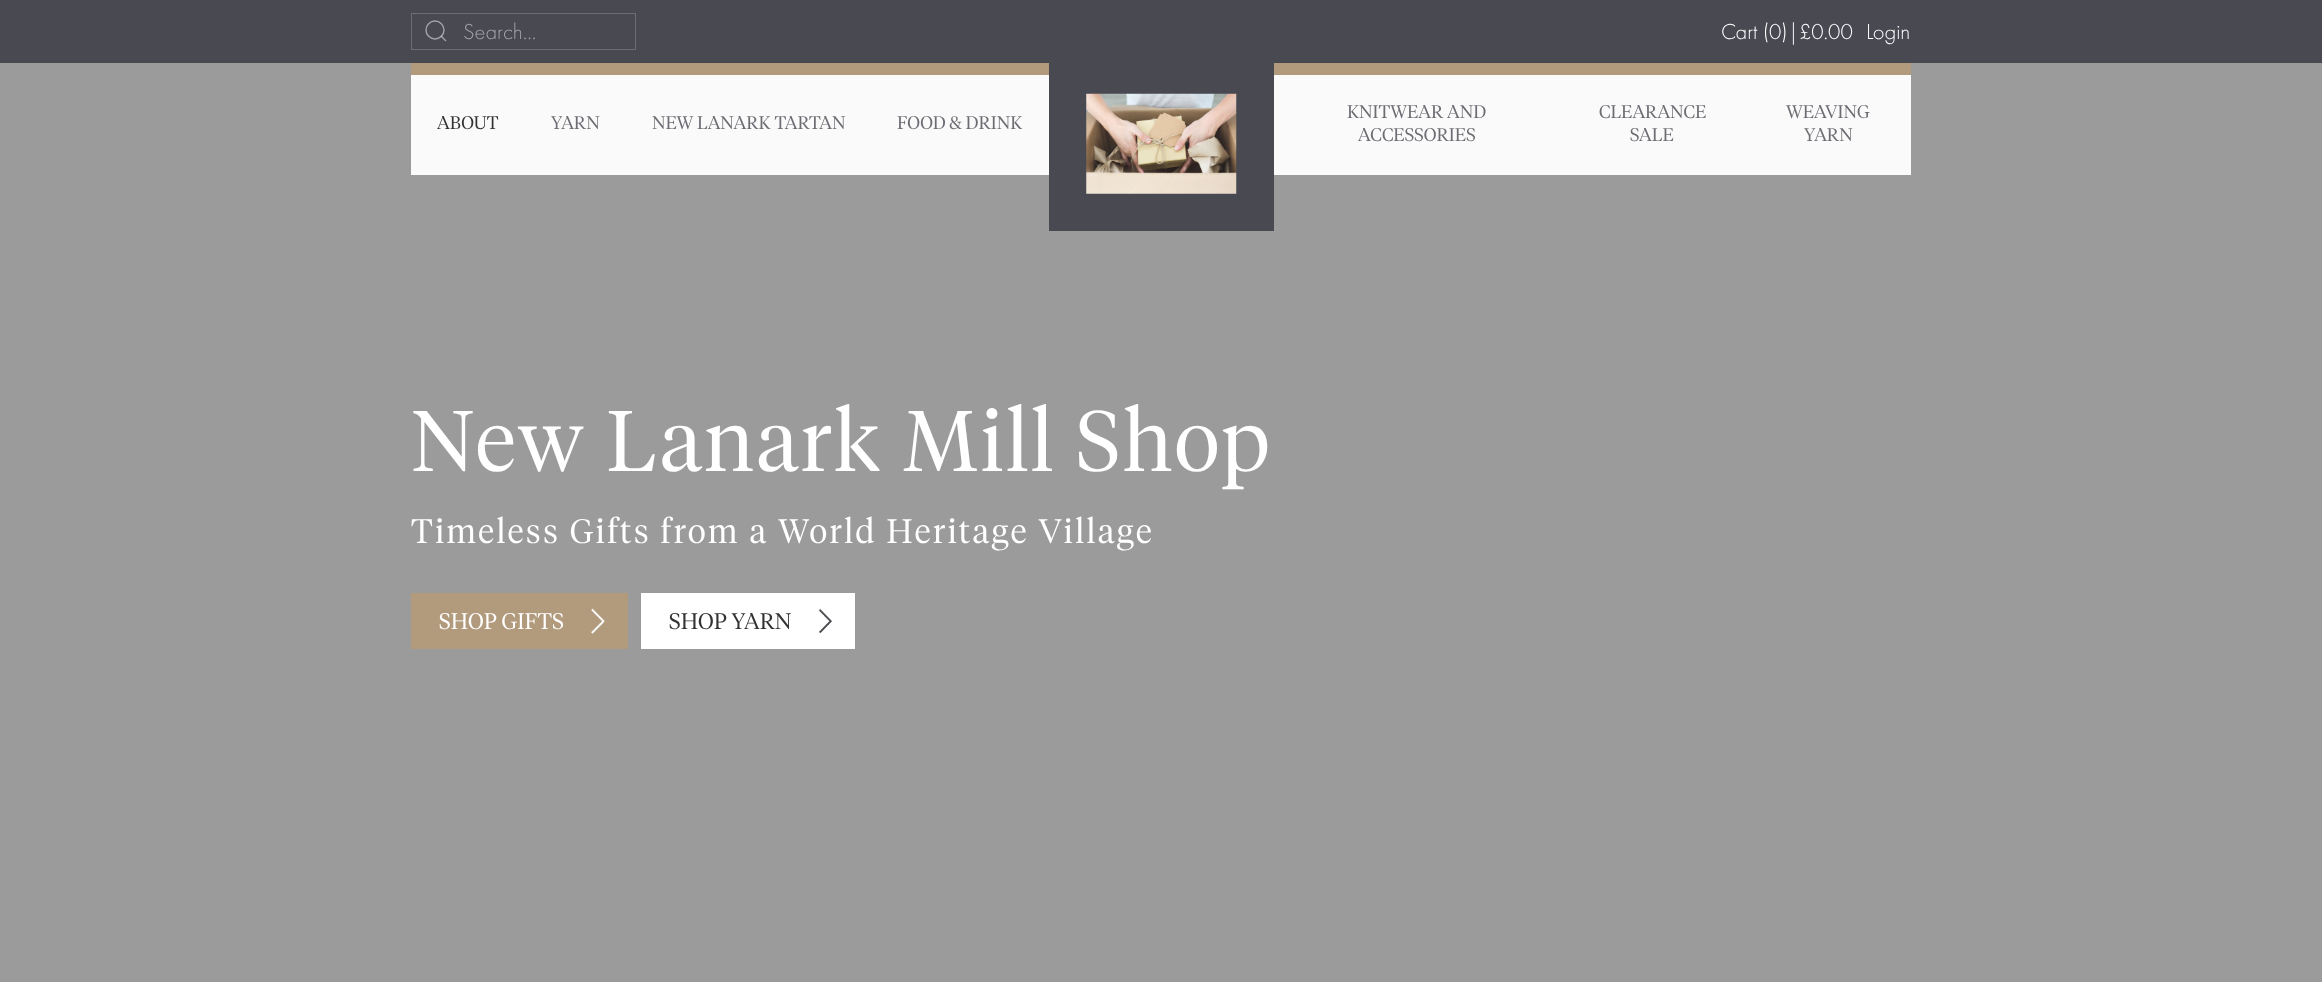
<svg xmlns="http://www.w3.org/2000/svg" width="2322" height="982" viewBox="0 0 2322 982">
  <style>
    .t1 { font: 300 22.5px Futura PT; fill: #a4a4a8; }
    .t2 { font: 300 22.5px Futura PT; fill: #fff; }
    .t3 { font: 300 18.25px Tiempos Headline; fill: #333; }
    .t4 { font: 300 18.25px Tiempos Headline; fill: #6c6c73; }
    .t5 { font: 300 85.5px Tiempos Headline; letter-spacing: 2.5px; fill: #fff; }
    .t6 { font: 300 33.75px Tiempos Headline; letter-spacing: 2.5px; fill: #fff; }
    .t7 { font: 300 22.5px Tiempos Headline; fill: #fff; }
    .t8 { font: 300 22.5px Tiempos Headline; fill: #333; }
  </style>
  <rect width="100%" height="100%" fill="#484951"/>
  <rect x="411.5" y="13.5" width="224" height="36" fill="none" stroke="#6d6d74"/>
  <circle cx="435" cy="30" r="9" fill="none" stroke="#a4a4a8" stroke-width="1.4"/>
  <path d="M441 36L446 41Z" fill="none" stroke="#ffffff80" stroke-width="1.4"/>
  <text x="463" y="39" class="t1">Search...</text>
  <text x="1721" y="39" class="t2">Cart (0)|£0.00</text>
  <text x="1866" y="39" class="t2">Login</text>
  <rect x="0" y="63" width="2322" height="919" fill="#9b9b9b"/>
  <rect x="411" y="75" width="1500" height="100" fill="#fafafa"/>
  <rect x="411" y="63" width="1500" height="12" fill="#b29a7d"/>
  <text x="437" y="129" class="t3">ABOUT</text>
  <text x="551" y="129" class="t4">YARN</text>
  <text x="652" y="129" class="t4">NEW LANARK TARTAN</text>
  <text x="897" y="129" class="t4">FOOD &amp; DRINK</text>
  <rect x="1049" y="63" width="225" height="168" fill="#484951"/>
  <image x="1086" y="93" width="151" height="101" href="images/1.png"/>
  <text x="1347" y="118" class="t4">KNITWEAR AND</text>
  <text x="1358" y="141" class="t4">ACCESSORIES</text>
  <text x="1599" y="118" class="t4">CLEARANCE</text>
  <text x="1630" y="141" class="t4">SALE</text>
  <text x="1786" y="118" class="t4">WEAVING</text>
  <text x="1804" y="141" class="t4">YARN</text>
  <text x="411" y="471" class="t5">New Lanark Mill Shop</text>
  <text x="411" y="543" class="t6">Timeless Gifts from a World Heritage Village</text>
  <rect x="411" y="593" width="217" height="56" fill="#b29a7d"/>
  <text x="439" y="629" class="t7">SHOP GIFTS</text>
  <image x="591" y="608" width="14" height="26" href="images/2.png"/>
  <rect x="641" y="593" width="214" height="56" fill="#fff"/>
  <text x="669" y="629" class="t8">SHOP YARN</text>
  <image x="818" y="608" width="14" height="25" href="images/3.png"/>
</svg>
